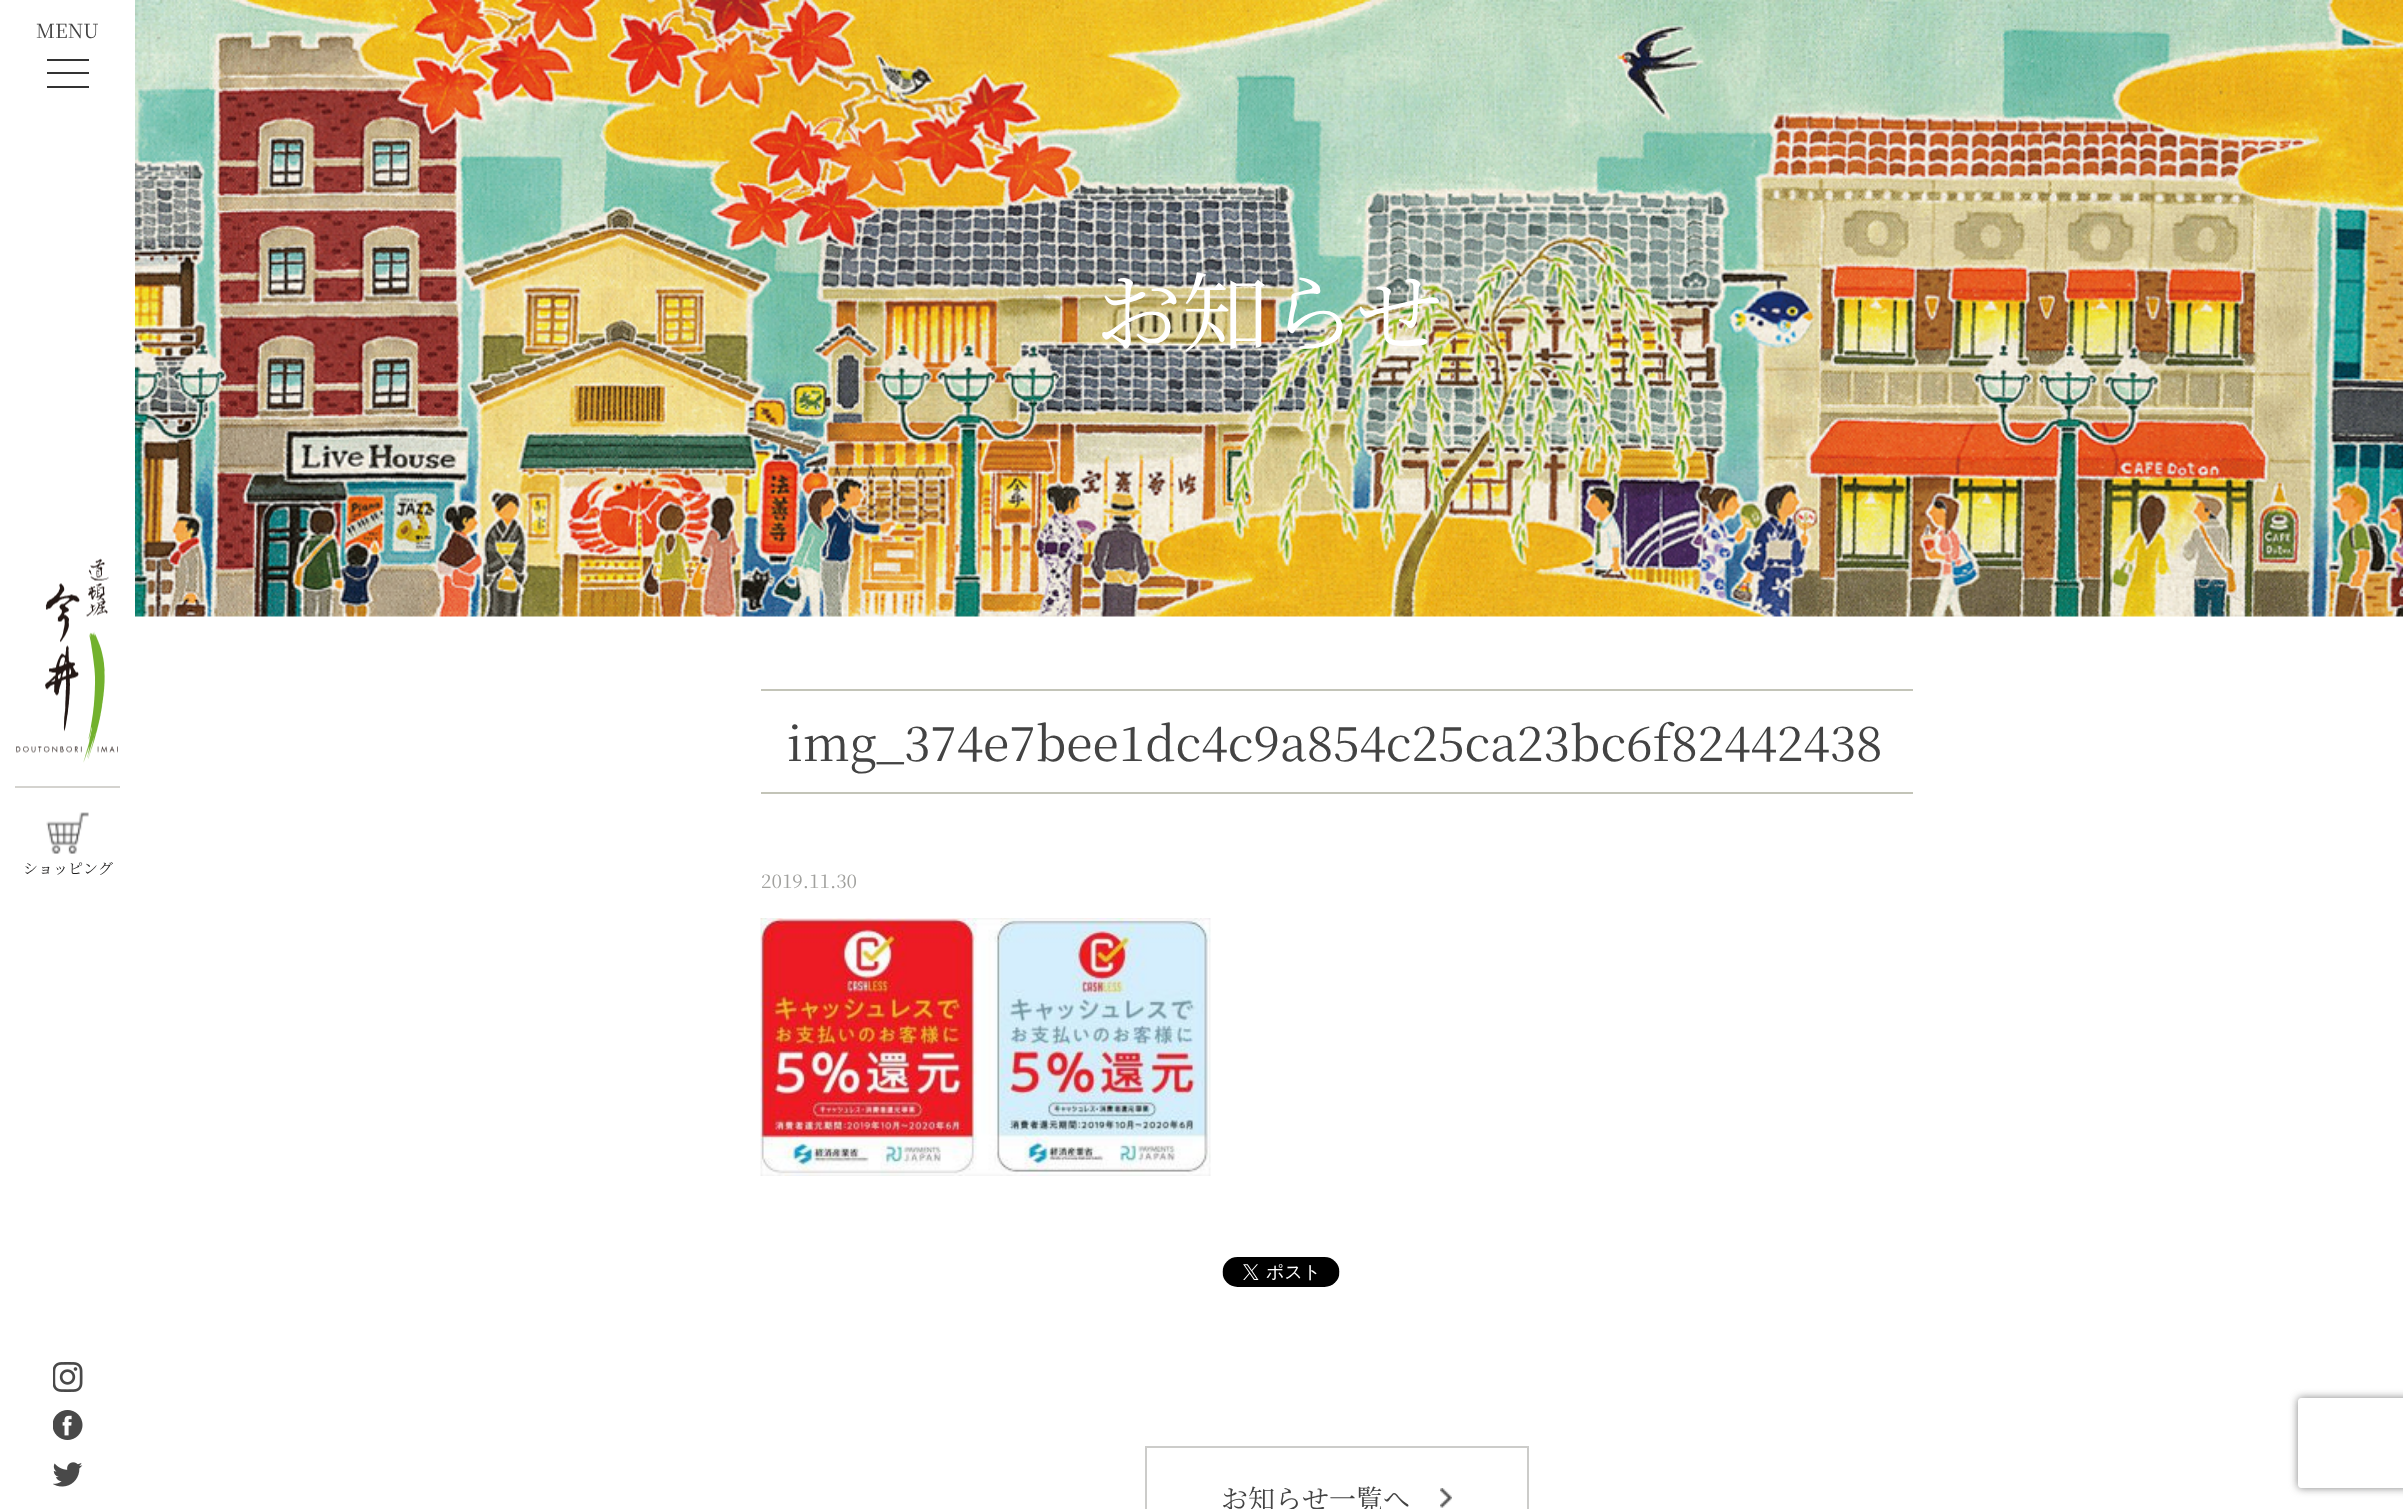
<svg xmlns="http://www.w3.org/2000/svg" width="2403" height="1509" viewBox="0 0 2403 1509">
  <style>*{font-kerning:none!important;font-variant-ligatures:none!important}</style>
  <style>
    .t1 { font: 19.5px Noto Serif JP; fill: #434343; }
    .t2 { font: 15px Noto Serif JP; fill: #1e1d1d; }
    .t3 { font: 87px Noto Serif JP; fill: #fff; }
    .t4 { font: 48px Noto Serif JP; fill: #434343; }
    .t5 { font: 19px Noto Serif JP; fill: #a1a19e; }
    .t6 { font: 27px Noto Serif JP; fill: #434343; }
  </style>
  <defs>
    <clipPath id="clip1"><path d="M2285 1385H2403V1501H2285ZM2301 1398H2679C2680.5 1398 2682 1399.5 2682 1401V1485C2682 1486.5 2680.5 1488 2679 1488H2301C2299.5 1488 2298 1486.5 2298 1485V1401C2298 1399.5 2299.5 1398 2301 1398Z" clip-rule="evenodd"/></clipPath>
  </defs>
  <rect width="100%" height="100%" fill="#fff"/>
  <text x="36" y="38" class="t1">MENU</text>
  <rect x="47" y="59" width="42" height="2" fill="#333"/>
  <rect x="47" y="72" width="42" height="2" fill="#333"/>
  <rect x="47" y="86" width="42" height="2" fill="#333"/>
  <rect x="15" y="786" width="105" height="2" fill="#d4d3cf"/>
  <image x="16" y="558" width="102" height="205" href="images/1.png"/>
  <image x="46" y="812" width="43" height="42" href="images/2.png"/>
  <text x="23" y="874" class="t2">ショッピング</text>
  <image x="53" y="1362" width="30" height="30" href="images/3.png"/>
  <image x="53" y="1410" width="30" height="30" href="images/4.png"/>
  <image x="53" y="1462" width="30" height="25" href="images/5.png"/>
  <image x="135" y="0" width="2268" height="617" href="images/6.png"/>
  <text x="1095" y="345" class="t3">お知らせ</text>
  <rect x="761" y="689" width="1152" height="2" fill="#c3c4b8"/>
  <rect x="761" y="792" width="1152" height="2" fill="#c3c4b8"/>
  <text x="787" y="761" class="t4">img_374e7bee1dc4c9a854c25ca23bc6f82442438</text>
  <text x="761" y="888" class="t5">2019.11.30</text>
  <image x="760" y="918" width="451" height="258" href="images/7.png"/>
  <image x="1222" y="1257" width="118" height="30" href="images/8.png"/>
  <rect x="1146" y="1447" width="382" height="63" fill="none" stroke="#ccccca" stroke-width="2"/>
  <text x="1221" y="1509" class="t6">お知らせ一覧へ</text>
  <image x="1440" y="1488" width="12" height="20" href="images/9.png"/>
  <g clip-path="url(#clip1)">
    <rect x="2298" y="1398" width="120" height="90" rx="3" fill="#808080" filter="blur(4px)"/>
  </g>
</svg>
